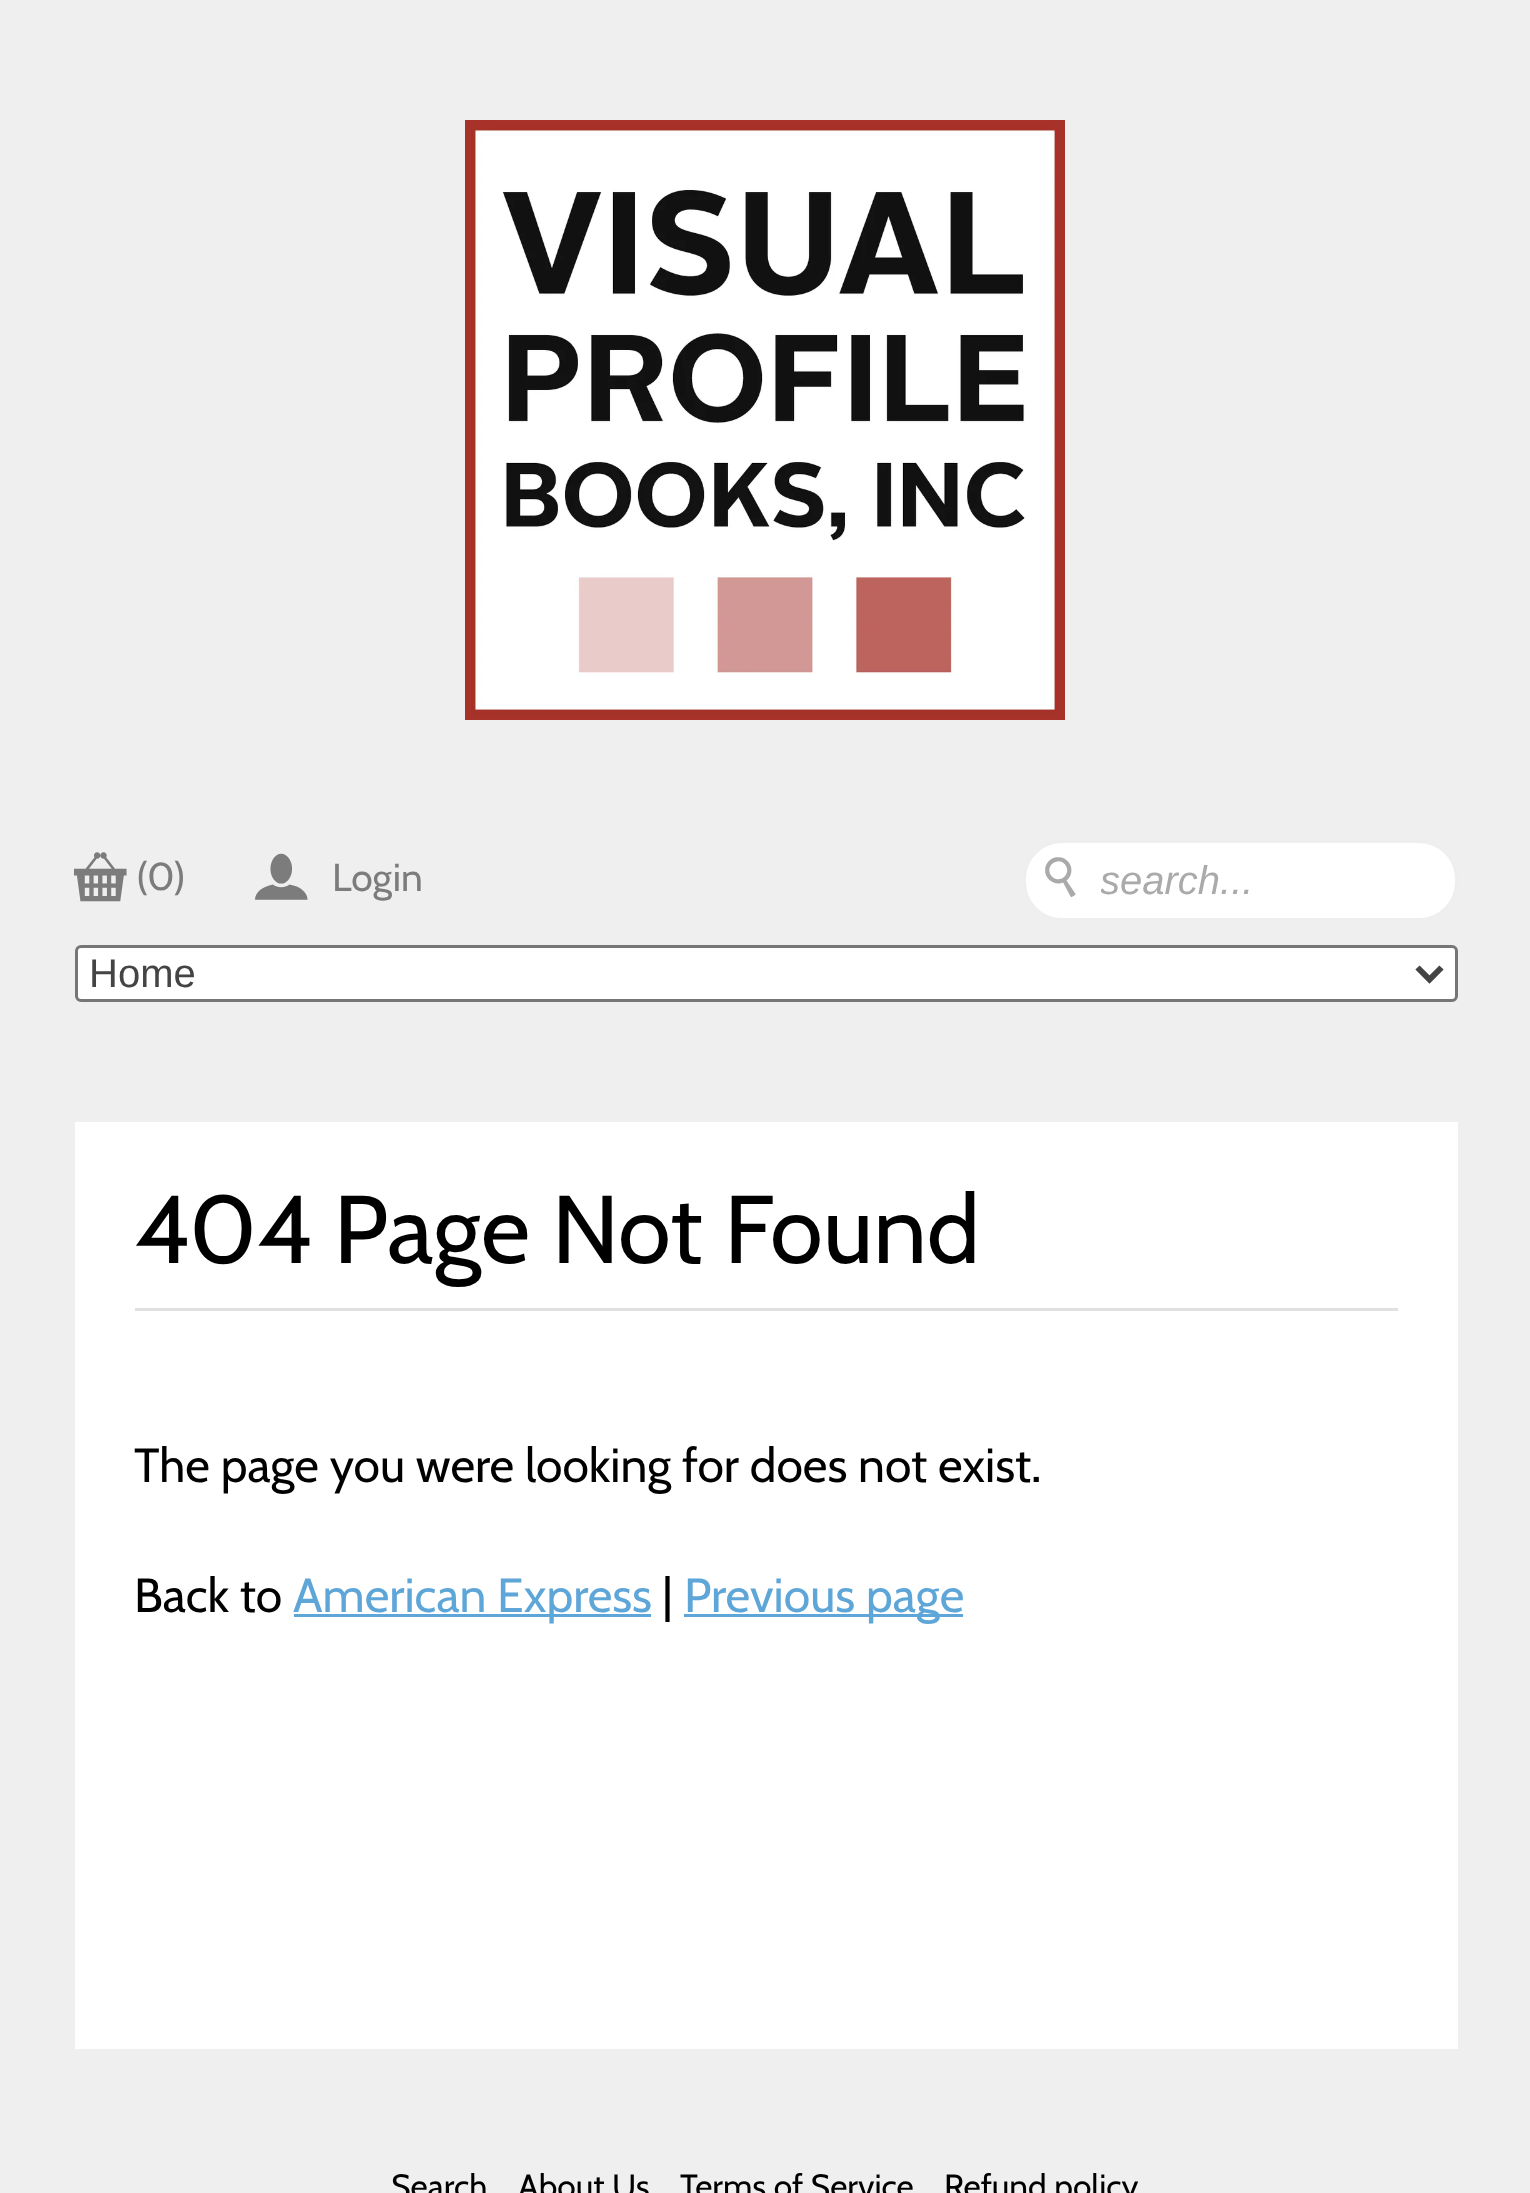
<svg xmlns="http://www.w3.org/2000/svg" width="1530" height="2193" viewBox="0 0 1530 2193">
  <style>
    .t1 { font: 75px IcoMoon; fill: #7c7c7c; }
    .t2 { font: 39px Cabin; fill: #7c7c7c; }
    .t3 { font: 57px IcoMoon; fill: #aaa; }
    .t4 { font: italic 40px Liberation Sans; fill: #aaa; }
    .t5 { font: 40px Liberation Sans; fill: #444; }
    .t6 { font: 96px Cabin; fill: #000; }
    .t7 { font: 48px Cabin; fill: #000; }
    .t8 { font: 48px Cabin; fill: #5fa6d8; }
    .t9 { font: 33.5px Cabin; fill: #000; }
  </style>
  <defs>
    <clipPath id="clip1"><rect x="1101" y="858" width="300" height="45"/></clipPath>
  </defs>
  <rect width="100%" height="100%" fill="#efefef"/>
  <image x="465" y="120" width="600" height="600" href="images/1.png"/>
  <text x="74" y="903" class="t1">#</text>
  <text x="136" y="890" class="t2">(0)</text>
  <text x="255" y="903" class="t1">'</text>
  <text x="332" y="891" class="t2">Login</text>
  <rect x="1024.5" y="841.5" width="432" height="78" rx="37.5" fill="#fff" stroke="#eee" stroke-width="3"/>
  <text x="1040" y="897" class="t3">(</text>
  <g clip-path="url(#clip1)">
    <text x="1100" y="894" class="t4">search...</text>
  </g>
  <rect x="76.5" y="946.5" width="1380" height="54" rx="4.5" fill="#fff" stroke="#767676" stroke-width="3"/>
  <path d="M1417.5 967.5L1429.5 979.5L1441.5 967.5" fill="none" stroke="#444" stroke-width="6"/>
  <text x="89" y="987" class="t5">Home</text>
  <rect x="75" y="1122" width="1383" height="927" fill="#fff"/>
  <rect x="135" y="1308" width="1263" height="3" fill="#e0e0e0"/>
  <text x="134" y="1263" class="t6">404 Page Not Found</text>
  <text x="134" y="1482" class="t7">The page you were looking for does not exist.</text>
  <text x="134" y="1612" class="t7">Back to</text>
  <rect x="294" y="1614" width="357" height="3" fill="#5fa6d8"/>
  <text x="293" y="1612" class="t8">American Express</text>
  <text x="662" y="1612" class="t7">|</text>
  <rect x="684" y="1614" width="279" height="3" fill="#5fa6d8"/>
  <text x="684" y="1612" class="t8">Previous page</text>
  <text x="391" y="2198" class="t9">Search</text>
  <text x="518" y="2198" class="t9">About Us</text>
  <text x="680" y="2198" class="t9">Terms of Service</text>
  <text x="944" y="2198" class="t9">Refund policy</text>
</svg>
